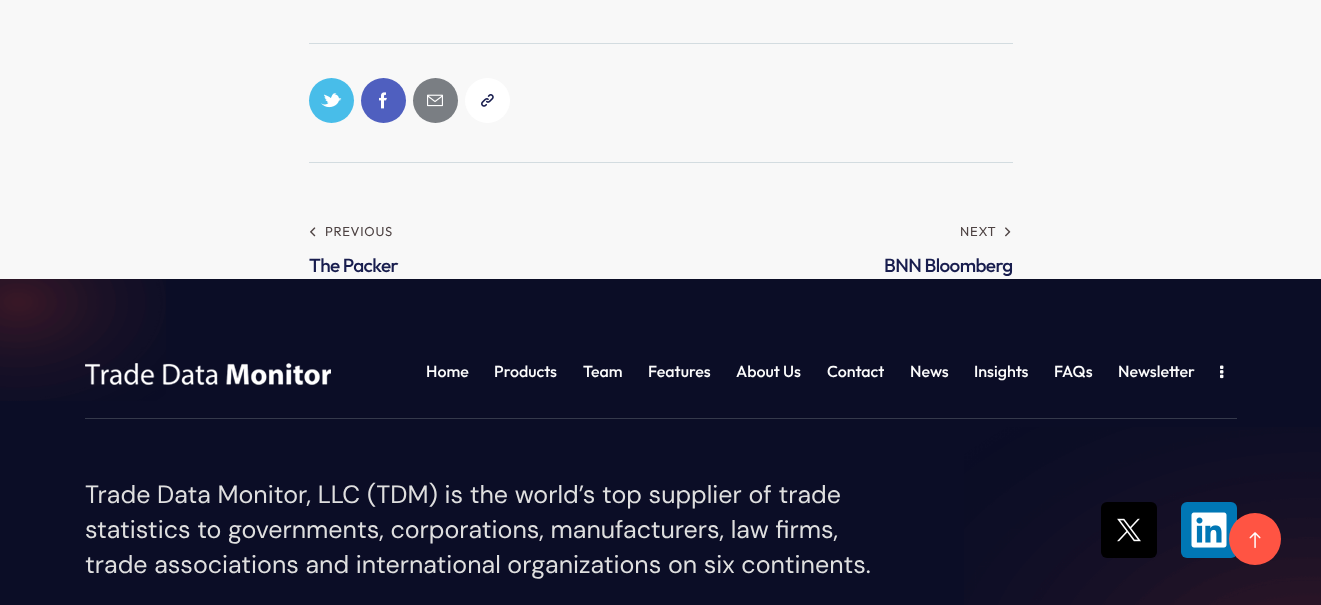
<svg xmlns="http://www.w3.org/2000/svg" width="1321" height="605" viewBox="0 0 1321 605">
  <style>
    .t1 { font: 13px Outfit; letter-spacing: 0.75px; fill: #4e4343; }
    .t2 { font: 500 19px Outfit; letter-spacing: -0.6px; fill: #181d4e; }
    .t3 { font: 500 16px Outfit; fill: #fcfcfc; }
    .t4 { font: 25px DM Sans; fill: #dfdfdf; }
  </style>
  <rect width="100%" height="100%" fill="#f8f8f8"/>
  <rect x="309" y="43" width="704" height="1" fill="#d3dce0"/>
  <circle cx="331.5" cy="100.5" r="22.5" fill="#48bde9"/>
  <image x="321" y="93" width="21" height="15" href="images/1.png"/>
  <circle cx="383.5" cy="100.5" r="22.5" fill="#4f5fbf"/>
  <image x="379" y="92" width="8" height="17" href="images/2.png"/>
  <circle cx="435.5" cy="100.5" r="22.5" fill="#7a7e83"/>
  <image x="427" y="94" width="16" height="13" href="images/3.png"/>
  <circle cx="487.5" cy="100.5" r="22.5" fill="#fff"/>
  <image x="481" y="94" width="13" height="13" href="images/4.png"/>
  <rect x="309" y="162" width="704" height="1" fill="#d3dce0"/>
  <image x="310" y="227" width="6" height="10" href="images/5.png"/>
  <text x="325" y="236" class="t1">PREVIOUS</text>
  <text x="309" y="272" class="t2">The Packer</text>
  <text x="960" y="236" class="t1">NEXT</text>
  <image x="1005" y="227" width="6" height="10" href="images/6.png"/>
  <text x="884" y="272" class="t2">BNN Bloomberg</text>
  <rect x="0" y="279" width="1321" height="326" fill="#0b0d26"/>
  <image x="0" y="279" width="166" height="122" href="images/7.png"/>
  <image x="85" y="363" width="246" height="22" href="images/8.png"/>
  <text x="426" y="377" class="t3">Home</text>
  <text x="494" y="377" class="t3">Products</text>
  <text x="583" y="377" class="t3">Team</text>
  <text x="648" y="377" class="t3">Features</text>
  <text x="736" y="377" class="t3">About Us</text>
  <text x="827" y="377" class="t3">Contact</text>
  <text x="910" y="377" class="t3">News</text>
  <text x="974" y="377" class="t3">Insights</text>
  <text x="1054" y="377" class="t3">FAQs</text>
  <text x="1118" y="377" class="t3">Newsletter</text>
  <image x="1220" y="365" width="4" height="14" href="images/9.png"/>
  <rect x="85" y="418" width="1152" height="1" fill="#35394b"/>
  <text x="85" y="503" class="t4">Trade Data Monitor, LLC (TDM) is the world’s top supplier of trade</text>
  <text x="85" y="538" class="t4">statistics to governments, corporations, manufacturers, law firms,</text>
  <text x="85" y="573" class="t4">trade associations and international organizations on six continents.</text>
  <image x="964" y="427" width="357" height="178" href="images/12.png"/>
  <rect x="1101" y="502" width="56" height="56" rx="6" fill="#000"/>
  <image x="1117" y="518" width="24" height="24" href="images/10.png"/>
  <rect x="1181" y="502" width="56" height="56" rx="6" fill="#0077b5"/>
  <image x="1191" y="512" width="36" height="36" href="images/11.png"/>
  <circle cx="1255" cy="539" r="26" fill="#ff5443"/>
  <image x="1249" y="532" width="12" height="17" href="images/13.png"/>
</svg>
